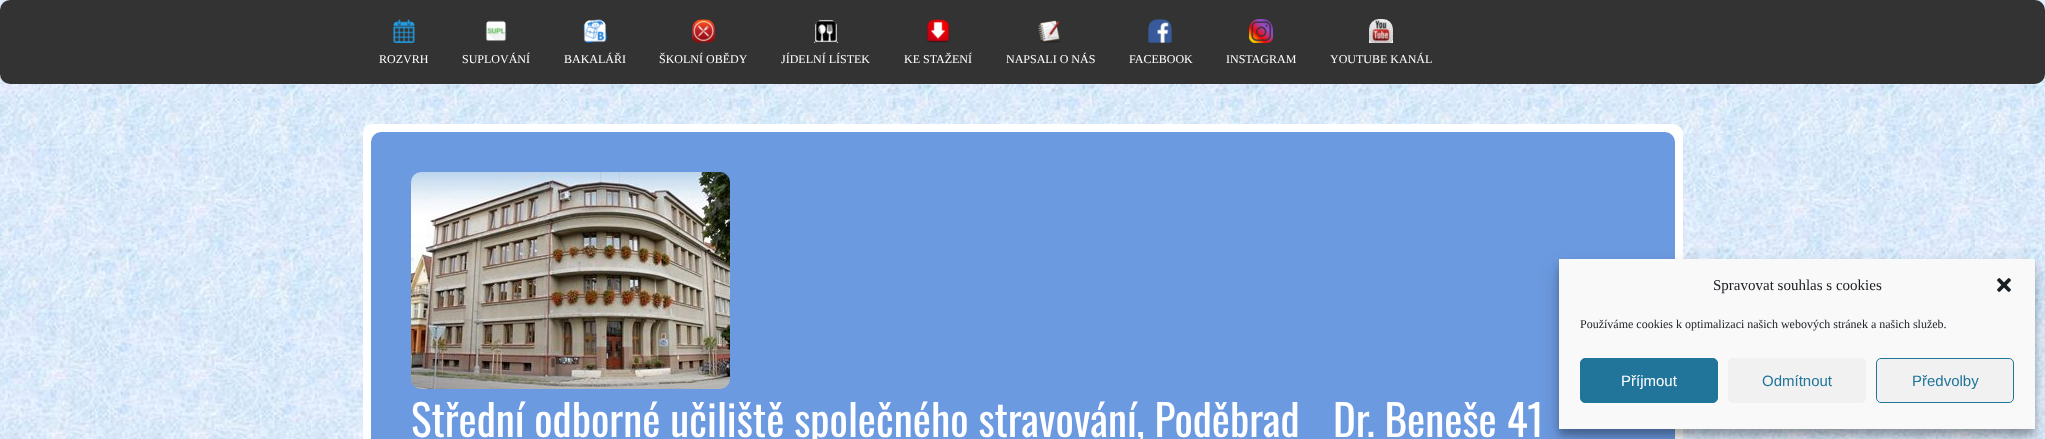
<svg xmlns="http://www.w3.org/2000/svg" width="2045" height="439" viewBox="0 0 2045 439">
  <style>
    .t1 { font: 12px Liberation Serif; fill: #fff; }
    .t2 { font: 15px Liberation Serif; fill: #191e23; }
    .t3 { font: 12px Liberation Serif; fill: #191e23; }
    .t4 { font: 15px Liberation Sans; fill: #fff; }
    .t5 { font: 15px Liberation Sans; fill: #21759b; }
    .t6 { font: 43.2px Oswald; fill: #fff; }
  </style>
  <rect width="100%" height="100%" fill="#fff"/>
  <image x="0" y="0" width="2045" height="439" href="images/1.png"/>
  <rect x="0" y="0" width="2045" height="84" rx="10" fill="#333"/>
  <image x="393" y="19" width="22" height="24" href="images/2.png"/>
  <text x="379" y="63" class="t1">ROZVRH</text>
  <image x="485" y="20" width="22" height="22" href="images/3.png"/>
  <text x="462" y="63" class="t1">SUPLOVÁNÍ</text>
  <image x="583" y="19" width="24" height="24" href="images/4.png"/>
  <text x="564" y="63" class="t1">BAKALÁŘI</text>
  <image x="692" y="19" width="23" height="24" href="images/5.png"/>
  <text x="659" y="63" class="t1">ŠKOLNÍ OBĚDY</text>
  <image x="814" y="19" width="24" height="24" href="images/6.png"/>
  <text x="781" y="63" class="t1">JÍDELNÍ LÍSTEK</text>
  <image x="926" y="19" width="24" height="24" href="images/7.png"/>
  <text x="904" y="63" class="t1">KE STAŽENÍ</text>
  <image x="1038" y="20" width="23" height="23" href="images/8.png"/>
  <text x="1006" y="63" class="t1">NAPSALI O NÁS</text>
  <image x="1148" y="19" width="24" height="24" href="images/9.png"/>
  <text x="1129" y="63" class="t1">FACEBOOK</text>
  <image x="1249" y="19" width="24" height="24" href="images/10.png"/>
  <text x="1226" y="63" class="t1">INSTAGRAM</text>
  <image x="1369" y="19" width="24" height="24" href="images/11.png"/>
  <text x="1330" y="63" class="t1">YOUTUBE KANÁL</text>
  <rect x="363" y="124" width="1320" height="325" rx="10" fill="#fff"/>
  <rect x="371" y="132" width="1304" height="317" rx="10" fill="#6c9ae0"/>
  <rect x="1559" y="265" width="476" height="170" fill="#0000003b" filter="blur(3px)"/>
  <rect x="1559" y="269" width="476" height="170" fill="#00000030" filter="blur(10px)"/>
  <rect x="1559" y="259" width="476" height="170" fill="#f9f9f9"/>
  <text x="1713" y="290" class="t2">Spravovat souhlas s cookies</text>
  <image x="1997" y="278" width="14" height="14" href="images/12.png"/>
  <text x="1580" y="328" class="t3">Používáme cookies k optimalizaci našich webových stránek a našich služeb.</text>
  <rect x="1580.5" y="358.5" width="137" height="44" rx="4.5" fill="#21759b" stroke="#21759b"/>
  <text x="1621" y="386" class="t4">Příjmout</text>
  <rect x="1728" y="358" width="138" height="45" rx="5" fill="#f1f1f1"/>
  <text x="1762" y="386" class="t5">Odmítnout</text>
  <rect x="1876.5" y="358.5" width="137" height="44" rx="4.5" fill="#f1f1f1" stroke="#21759b"/>
  <text x="1912" y="386" class="t5">Předvolby</text>
  <image x="411" y="172" width="319" height="217" href="images/13.png"/>
  <text x="411" y="437" class="t6">Střední odborné učiliště společného stravování, Poděbrad</text>
  <text x="1333" y="437" class="t6">Dr. Beneše 41</text>
</svg>
